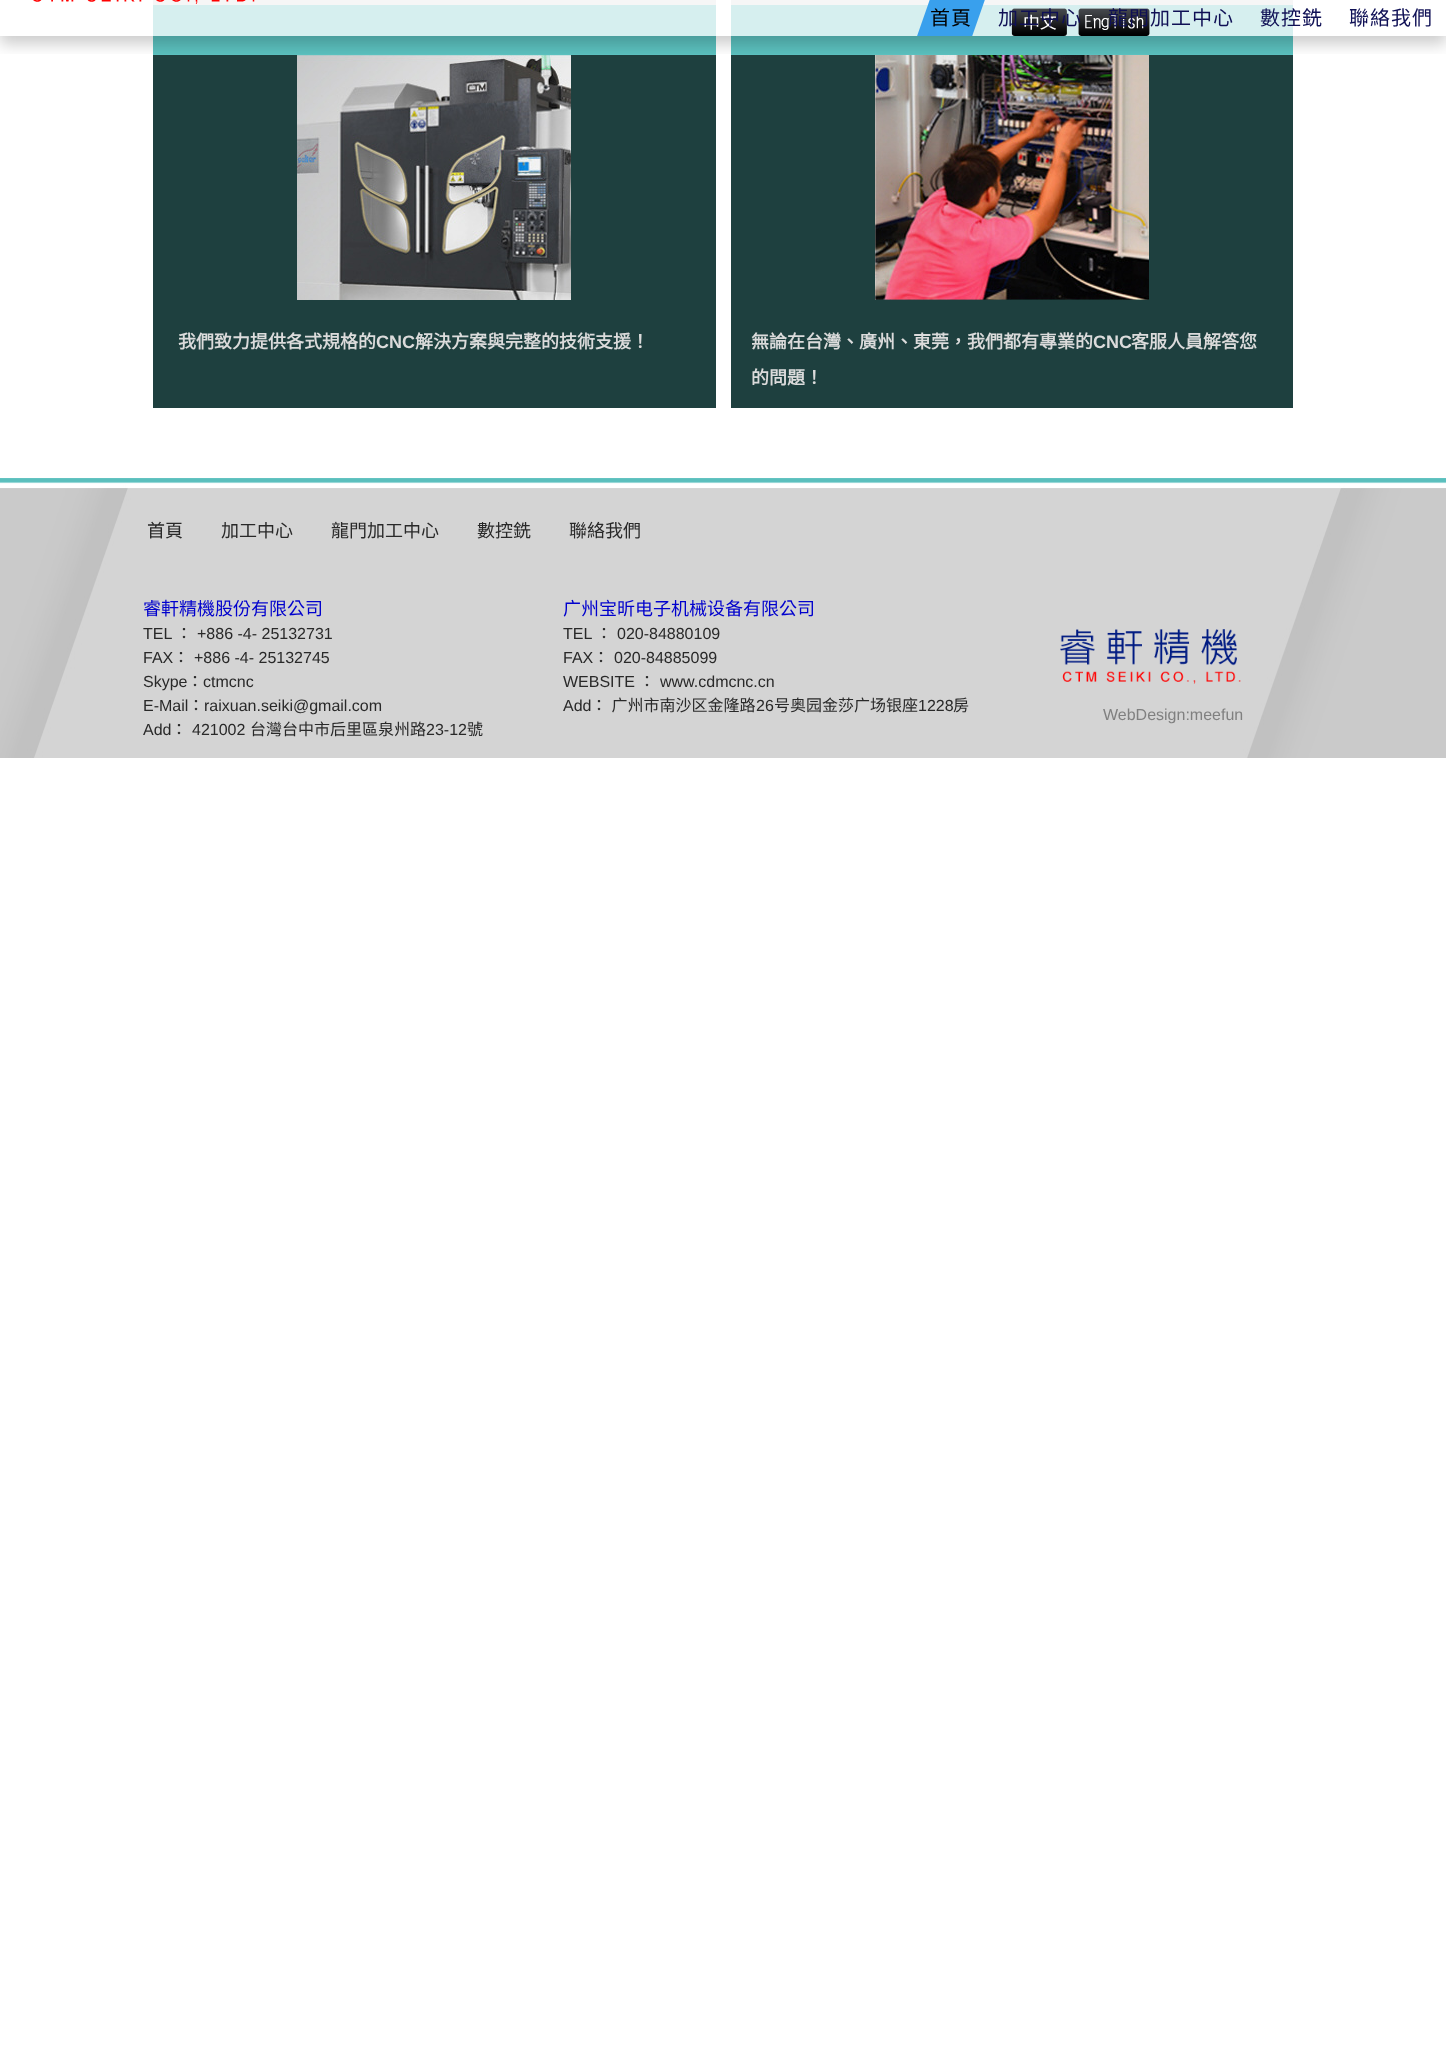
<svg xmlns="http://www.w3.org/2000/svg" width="1446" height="2070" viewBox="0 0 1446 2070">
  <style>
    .t1 { font: 20px Noto Sans CJK TC; letter-spacing: 1px; fill: #000; }
    .t2 { font: 20px Noto Sans CJK TC; letter-spacing: 1px; fill: #0f1055; }
    .t3 { font: bold 18px Noto Sans CJK TC; fill: #dbdbdb; }
    .t4 { font: bold 18px Liberation Sans; fill: #dbdbdb; }
    .t5 { font: 18px Noto Sans CJK TC; fill: #292929; }
    .t6 { font: 18px Noto Sans CJK TC; fill: #0000cd; }
    .t7 { font: 16px Liberation Sans; fill: #292929; }
    .t8 { font: 16px Noto Sans CJK TC; fill: #292929; }
    .t9 { font: 16px Liberation Sans; fill: #808080; }
  </style>
  <defs>
    <clipPath id="clip1"><rect x="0" y="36" width="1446" height="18"/></clipPath>
  </defs>
  <rect width="100%" height="100%" fill="#fff"/>
  <rect x="153" y="55" width="563" height="353" fill="#1e403f"/>
  <rect x="153" y="5" width="563" height="50" fill="#5bc0be"/>
  <rect x="153" y="0" width="563" height="5" fill="#dadada"/>
  <image x="297" y="55" width="274" height="245" href="images/5.png"/>
  <rect x="731" y="55" width="562" height="353" fill="#1e403f"/>
  <rect x="731" y="5" width="562" height="50" fill="#5bc0be"/>
  <rect x="731" y="0" width="562" height="5" fill="#dadada"/>
  <image x="875" y="55" width="274" height="245" href="images/6.png"/>
  <g clip-path="url(#clip1)">
    <rect x="0" y="8" width="1446" height="36" fill="#00000033" filter="blur(7.5px)"/>
  </g>
  <rect x="153" y="0" width="1140" height="36" fill="#ffffffbf"/>
  <image x="33" y="0" width="222" height="4" href="images/1.png"/>
  <image x="917" y="0" width="68" height="36" href="images/2.png"/>
  <text x="930" y="25" class="t1">首頁</text>
  <image x="1011" y="8" width="56" height="28" href="images/3.png"/>
  <image x="1078" y="8" width="72" height="28" href="images/4.png"/>
  <text x="998" y="25" class="t2">加工中心</text>
  <text x="1108" y="25" class="t2">龍門加工中心</text>
  <text x="1260" y="25" class="t2">數控銑</text>
  <text x="1349" y="25" class="t2">聯絡我們</text>
  <text x="178" y="348" class="t3">我們致力提供各式規格的</text>
  <text x="376" y="348" class="t4">CNC</text>
  <text x="415" y="348" class="t3">解決方案與完整的技術支援！</text>
  <text x="751" y="348" class="t3">無論在台灣、廣州、東莞，我們都有專業的</text>
  <text x="1093" y="348" class="t4">CNC</text>
  <text x="1131" y="348" class="t3">客服人員解答您</text>
  <text x="751" y="384" class="t3">的問題！</text>
  <image x="0" y="468" width="1446" height="290" href="images/7.png"/>
  <text x="147" y="537" class="t5">首頁</text>
  <text x="221" y="537" class="t5">加工中心</text>
  <text x="331" y="537" class="t5">龍門加工中心</text>
  <text x="477" y="537" class="t5">數控銑</text>
  <text x="569" y="537" class="t5">聯絡我們</text>
  <text x="143" y="615" class="t6">睿軒精機股份有限公司</text>
  <text x="143" y="639" class="t7">TEL</text>
  <text x="176" y="639" class="t8">：</text>
  <text x="197" y="639" class="t7">+886 -4- 25132731</text>
  <text x="143" y="663" class="t7">FAX</text>
  <text x="173" y="663" class="t8">：</text>
  <text x="194" y="663" class="t7">+886 -4- 25132745</text>
  <text x="143" y="687" class="t7">Skype</text>
  <text x="187" y="687" class="t8">：</text>
  <text x="203" y="687" class="t7">ctmcnc</text>
  <text x="143" y="711" class="t7">E-Mail</text>
  <text x="188" y="711" class="t8">：</text>
  <text x="204" y="711" class="t7">raixuan.seiki@gmail.com</text>
  <text x="143" y="735" class="t7">Add</text>
  <text x="171" y="735" class="t8">：</text>
  <text x="192" y="735" class="t7">421002</text>
  <text x="250" y="735" class="t8">台灣台中市后里區泉州路</text>
  <text x="426" y="735" class="t7">23-12</text>
  <text x="467" y="735" class="t8">號</text>
  <text x="563" y="615" class="t6">广州宝昕电子机械设备有限公司</text>
  <text x="563" y="639" class="t7">TEL</text>
  <text x="596" y="639" class="t8">：</text>
  <text x="617" y="639" class="t7">020-84880109</text>
  <text x="563" y="663" class="t7">FAX</text>
  <text x="593" y="663" class="t8">：</text>
  <text x="614" y="663" class="t7">020-84885099</text>
  <text x="563" y="687" class="t7">WEBSITE</text>
  <text x="639" y="687" class="t8">：</text>
  <text x="660" y="687" class="t7">www.cdmcnc.cn</text>
  <text x="563" y="711" class="t7">Add</text>
  <text x="591" y="711" word-spacing="1" class="t8">： 广州市南沙区金隆路</text>
  <text x="756" y="711" class="t7">26</text>
  <text x="774" y="711" class="t8">号奥园金莎广场银座</text>
  <text x="918" y="711" class="t7">1228</text>
  <text x="953" y="711" class="t8">房</text>
  <image x="1060" y="629" width="181" height="55" href="images/8.png"/>
  <text x="1103" y="720" class="t9">WebDesign:meefun</text>
</svg>
